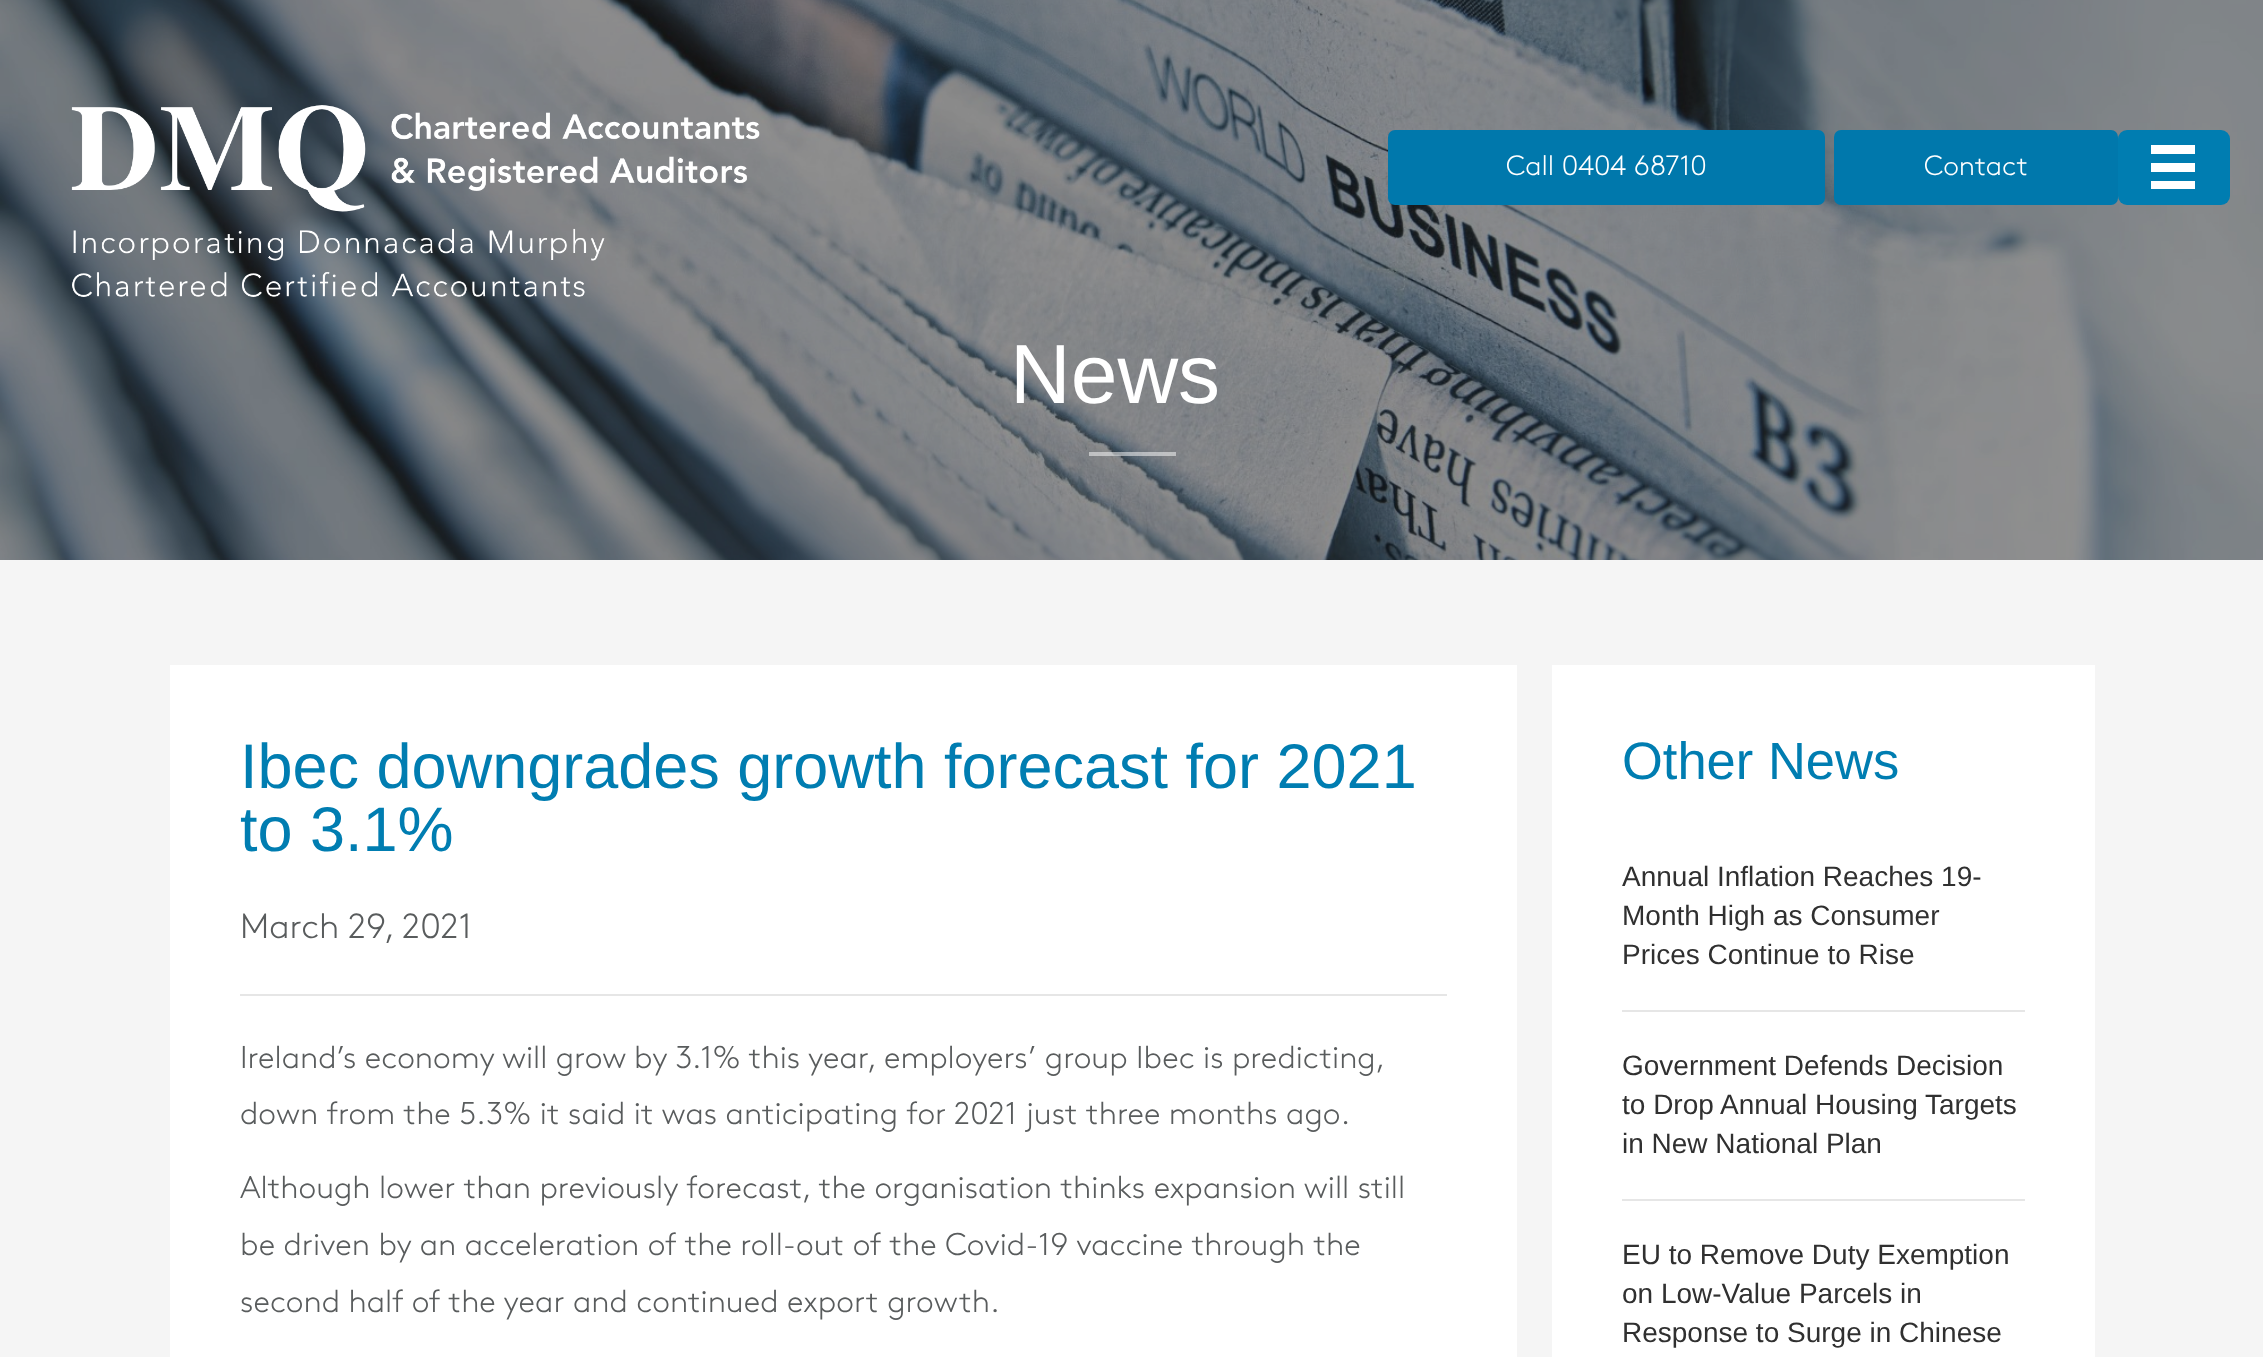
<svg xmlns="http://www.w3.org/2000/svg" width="2263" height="1357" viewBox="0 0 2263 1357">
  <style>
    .t1 { font: 300 28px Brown; fill: #fff; }
    .t2 { font: 84px Liberation Sans; fill: #fff; }
    .t3 { font: 63px Liberation Sans; fill: #007db1; }
    .t4 { font: 300 35px Brown; fill: #595c5d; }
    .t5 { font: 300 31.5px Brown; fill: #595c5d; }
    .t6 { font: 52.5px Liberation Sans; fill: #007db1; }
    .t7 { font: 28px Liberation Sans; fill: #303030; }
  </style>
  <rect width="100%" height="100%" fill="#fff"/>
  <image x="0" y="0" width="2263" height="560" href="images/2.png"/>
  <image x="71" y="105" width="689" height="192" href="images/1.png"/>
  <rect x="1388" y="130" width="437" height="75" rx="7" fill="#0078ac"/>
  <text x="1506" y="175" class="t1">Call 0404 68710</text>
  <rect x="1834" y="130" width="284" height="75" rx="7" fill="#0078ac"/>
  <text x="1924" y="175" class="t1">Contact</text>
  <rect x="2118" y="130" width="112" height="75" rx="9" fill="#007db1"/>
  <rect x="2151" y="145" width="44" height="9" fill="#fff"/>
  <rect x="2151" y="163" width="44" height="9" fill="#fff"/>
  <rect x="2151" y="181" width="44" height="8" fill="#fff"/>
  <text x="1010" y="403" class="t2">News</text>
  <rect x="1089" y="452" width="87" height="4" fill="#ffffff80"/>
  <rect x="0" y="560" width="2263" height="797" fill="#f5f5f5"/>
  <rect x="170" y="665" width="1347" height="692" fill="#fff"/>
  <text x="240" y="788" class="t3">Ibec downgrades growth forecast for 2021</text>
  <text x="240" y="851" class="t3">to 3.1%</text>
  <text x="240" y="938" class="t4">March 29, 2021</text>
  <rect x="240" y="994" width="1207" height="2" fill="#e6e6e6"/>
  <text x="240" y="1068" word-spacing="-0.1" class="t5">Ireland’s economy will grow by 3.1% this year, employers’ group Ibec is predicting,</text>
  <text x="240" y="1124" class="t5">down from the 5.3% it said it was anticipating for 2021 just three months ago.</text>
  <text x="240" y="1198" class="t5">Although lower than previously forecast, the organisation thinks expansion will still</text>
  <text x="240" y="1255" class="t5">be driven by an acceleration of the roll-out of the Covid-19 vaccine through the</text>
  <text x="240" y="1312" class="t5">second half of the year and continued export growth.</text>
  <rect x="1552" y="665" width="543" height="692" fill="#fff"/>
  <text x="1622" y="779" class="t6">Other News</text>
  <rect x="1622" y="1010" width="403" height="2" fill="#e6e6e6"/>
  <text x="1622" y="886" class="t7">Annual Inflation Reaches 19-</text>
  <text x="1622" y="925" class="t7">Month High as Consumer</text>
  <text x="1622" y="964" class="t7">Prices Continue to Rise</text>
  <rect x="1622" y="1199" width="403" height="2" fill="#e6e6e6"/>
  <text x="1622" y="1075" class="t7">Government Defends Decision</text>
  <text x="1622" y="1114" class="t7">to Drop Annual Housing Targets</text>
  <text x="1622" y="1153" class="t7">in New National Plan</text>
  <text x="1622" y="1264" class="t7">EU to Remove Duty Exemption</text>
  <text x="1622" y="1303" class="t7">on Low-Value Parcels in</text>
  <text x="1622" y="1342" class="t7">Response to Surge in Chinese</text>
</svg>
